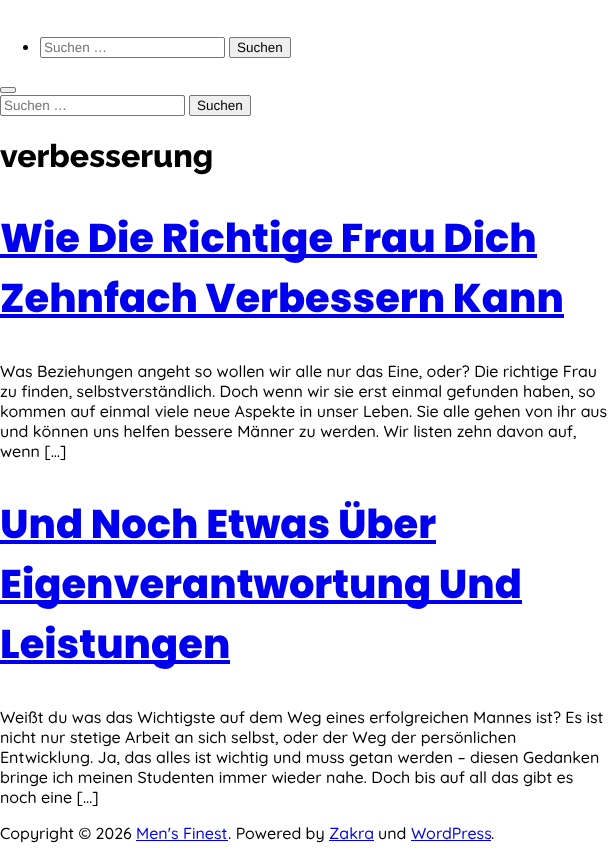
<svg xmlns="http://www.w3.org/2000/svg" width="613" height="862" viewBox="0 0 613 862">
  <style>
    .t1 { font: 13.5px Liberation Sans; fill: #757575; }
    .t2 { font: 13.5px Liberation Sans; fill: #000; }
    .t3 { font: 100 32px Raleway; fill: #000; }
    .t4 { font: 800 40px Poppins; fill: #00e; }
    .t5 { font: 500 16px Quicksand; fill: #000; }
    .t6 { font: 500 16px Quicksand; fill: #00e; }
  </style>
  <rect width="100%" height="100%" fill="#fff"/>
  <circle cx="25.5" cy="47.5" r="2.5" fill="#000"/>
  <rect x="40.5" y="37.5" width="184" height="20" rx="1.5" fill="none" stroke="#767676"/>
  <text x="44" y="52" class="t1">Suchen …</text>
  <rect x="229.5" y="37.5" width="61" height="20" rx="1.5" fill="#efefef" stroke="#767676"/>
  <text x="237" y="52" class="t2">Suchen</text>
  <rect x="0.5" y="87.5" width="15" height="5" rx="1.5" fill="#efefef" stroke="#767676"/>
  <rect x="0.5" y="95.5" width="184" height="20" rx="1.5" fill="none" stroke="#767676"/>
  <text x="4" y="110" class="t1">Suchen …</text>
  <rect x="189.5" y="95.5" width="61" height="20" rx="1.5" fill="#efefef" stroke="#767676"/>
  <text x="197" y="110" class="t2">Suchen</text>
  <text x="0" y="167" class="t3">verbesserung</text>
  <rect x="0" y="254" width="537" height="4" fill="#00e"/>
  <text x="0" y="252" class="t4">Wie Die Richtige Frau Dich</text>
  <text x="0" y="312" class="t4">Zehnfach Verbessern Kann</text>
  <rect x="0" y="314" width="564" height="4" fill="#00e"/>
  <text x="0" y="377" class="t5">Was Beziehungen angeht so wollen wir alle nur das Eine, oder? Die richtige Frau</text>
  <text x="0" y="397" class="t5">zu finden, selbstverständlich. Doch wenn wir sie erst einmal gefunden haben, so</text>
  <text x="0" y="417" class="t5">kommen auf einmal viele neue Aspekte in unser Leben. Sie alle gehen von ihr aus</text>
  <text x="0" y="437" class="t5">und können uns helfen bessere Männer zu werden. Wir listen zehn davon auf,</text>
  <text x="0" y="457" class="t5">wenn […]</text>
  <text x="0" y="538" class="t4">Und Noch Etwas Über</text>
  <rect x="0" y="540" width="436" height="4" fill="#00e"/>
  <rect x="0" y="600" width="522" height="4" fill="#00e"/>
  <text x="0" y="598" class="t4">Eigenverantwortung Und</text>
  <rect x="0" y="660" width="230" height="4" fill="#00e"/>
  <text x="0" y="658" class="t4">Leistungen</text>
  <text x="0" y="723" class="t5">Weißt du was das Wichtigste auf dem Weg eines erfolgreichen Mannes ist? Es ist</text>
  <text x="0" y="743" class="t5">nicht nur stetige Arbeit an sich selbst, oder der Weg der persönlichen</text>
  <text x="0" y="763" class="t5">Entwicklung. Ja, das alles ist wichtig und muss getan werden – diesen Gedanken</text>
  <text x="0" y="783" class="t5">bringe ich meinen Studenten immer wieder nahe. Doch bis auf all das gibt es</text>
  <text x="0" y="803" class="t5">noch eine […]</text>
  <text x="0" y="839" class="t5">Copyright © 2026</text>
  <text x="136" y="839" class="t6">Men's Finest</text>
  <rect x="136" y="840" width="92" height="1" fill="#00e"/>
  <text x="228" y="839" class="t5">. Powered by</text>
  <text x="329" y="839" class="t6">Zakra</text>
  <rect x="329" y="840" width="45" height="1" fill="#00e"/>
  <text x="378" y="839" class="t5">und</text>
  <text x="411" y="839" class="t6">WordPress</text>
  <rect x="411" y="840" width="80" height="1" fill="#00e"/>
  <text x="491" y="839" class="t5">.</text>
</svg>
